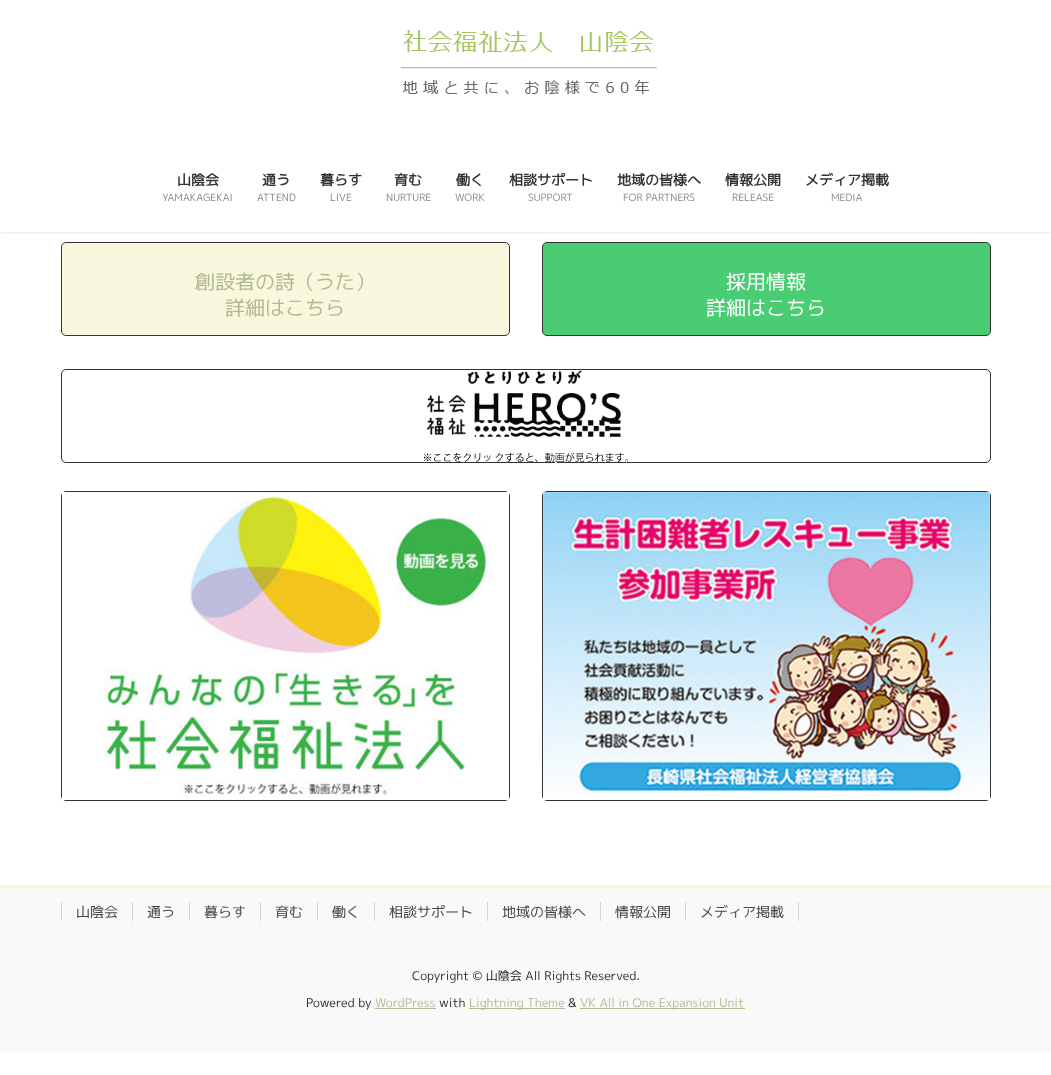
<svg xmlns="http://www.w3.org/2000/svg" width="1051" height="1075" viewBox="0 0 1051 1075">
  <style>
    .t1 { font: bold 14px 'M PLUS 1p'; fill: #333; }
    .t2 { font: 10px 'M PLUS 1p'; fill: #858585; }
    .t3 { font: 20px 'M PLUS 1p'; fill: #afba91; }
    .t4 { font: 20px 'M PLUS 1p'; fill: #fff; }
    .t5 { font: 14px 'M PLUS 1p'; fill: #464646; }
    .t6 { font: 12px 'M PLUS 1p'; fill: #212529; }
    .t7 { font: 12px 'M PLUS 1p'; fill: #afba91; }
  </style>
  <defs>
    <clipPath id="clip1"><rect x="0" y="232" width="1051" height="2"/></clipPath>
  </defs>
  <rect width="100%" height="100%" fill="#fff"/>
  <g clip-path="url(#clip1)">
    <rect x="0" y="1" width="1051" height="232" fill="#0000001a" filter="blur(1.5px)"/>
  </g>
  <image x="400" y="30" width="257" height="65" href="images/1.png"/>
  <text x="177" y="185" class="t1">山陰会</text>
  <text x="162" y="201" class="t2">YAMAKAGEKAI</text>
  <text x="262" y="185" class="t1">通う</text>
  <text x="257" y="201" class="t2">ATTEND</text>
  <text x="320" y="185" class="t1">暮らす</text>
  <text x="330" y="201" class="t2">LIVE</text>
  <text x="394" y="185" class="t1">育む</text>
  <text x="386" y="201" class="t2">NURTURE</text>
  <text x="456" y="185" class="t1">働く</text>
  <text x="455" y="201" class="t2">WORK</text>
  <text x="509" y="185" class="t1">相談サポート</text>
  <text x="528" y="201" class="t2">SUPPORT</text>
  <text x="617" y="185" class="t1">地域の皆様へ</text>
  <text x="623" y="201" class="t2">FOR PARTNERS</text>
  <text x="725" y="185" class="t1">情報公開</text>
  <text x="732" y="201" class="t2">RELEASE</text>
  <text x="805" y="185" class="t1">メディア掲載</text>
  <text x="831" y="201" class="t2">MEDIA</text>
  <rect x="61.5" y="242.5" width="448" height="93" rx="4.5" fill="#f9f7de" stroke="#333"/>
  <text x="195" y="289" class="t3">創設者の詩（うた）</text>
  <text x="225" y="315" class="t3">詳細はこちら</text>
  <rect x="542.5" y="242.5" width="448" height="93" rx="4.5" fill="#49cc74" stroke="#333"/>
  <text x="726" y="289" class="t4">採用情報</text>
  <text x="706" y="315" class="t4">詳細はこちら</text>
  <rect x="61.5" y="369.5" width="929" height="93" rx="4.5" fill="none" stroke="#333"/>
  <image x="424" y="370" width="204" height="93" href="images/2.png"/>
  <rect x="61.5" y="491.5" width="448" height="309" rx="4.5" fill="none" stroke="#333"/>
  <image x="62" y="492" width="447" height="308" href="images/3.png"/>
  <rect x="542.5" y="491.5" width="448" height="309" rx="4.5" fill="none" stroke="#333"/>
  <image x="543" y="492" width="447" height="308" href="images/4.png"/>
  <rect x="0" y="888" width="1051" height="164" fill="#f9f9f9"/>
  <rect x="0" y="885" width="1051" height="3" fill="#fff8c1"/>
  <text x="76" y="917" class="t5">山陰会</text>
  <rect x="61" y="902" width="1" height="19" fill="#d4d4d4"/>
  <text x="147" y="917" class="t5">通う</text>
  <rect x="132" y="902" width="1" height="19" fill="#d4d4d4"/>
  <text x="204" y="917" class="t5">暮らす</text>
  <rect x="189" y="902" width="1" height="19" fill="#d4d4d4"/>
  <text x="275" y="917" class="t5">育む</text>
  <rect x="260" y="902" width="1" height="19" fill="#d4d4d4"/>
  <text x="332" y="917" class="t5">働く</text>
  <rect x="317" y="902" width="1" height="19" fill="#d4d4d4"/>
  <text x="389" y="917" class="t5">相談サポート</text>
  <rect x="374" y="902" width="1" height="19" fill="#d4d4d4"/>
  <text x="502" y="917" class="t5">地域の皆様へ</text>
  <rect x="487" y="902" width="1" height="19" fill="#d4d4d4"/>
  <text x="615" y="917" class="t5">情報公開</text>
  <rect x="600" y="902" width="1" height="19" fill="#d4d4d4"/>
  <text x="700" y="917" class="t5">メディア掲載</text>
  <rect x="798" y="902" width="1" height="19" fill="#d4d4d4"/>
  <rect x="685" y="902" width="1" height="19" fill="#d4d4d4"/>
  <text x="412" y="980" class="t6">Copyright © 山陰会 All Rights Reserved.</text>
  <text x="306" y="1007" class="t6">Powered by</text>
  <text x="375" y="1007" class="t7">WordPress</text>
  <rect x="375" y="1008" width="61" height="1" fill="#afba91"/>
  <text x="439" y="1007" class="t6">with</text>
  <rect x="469" y="1008" width="96" height="1" fill="#afba91"/>
  <text x="469" y="1007" class="t7">Lightning Theme</text>
  <text x="568" y="1007" class="t6">&amp;</text>
  <rect x="580" y="1008" width="165" height="1" fill="#afba91"/>
  <text x="580" y="1007" class="t7">VK All in One Expansion Unit</text>
</svg>
